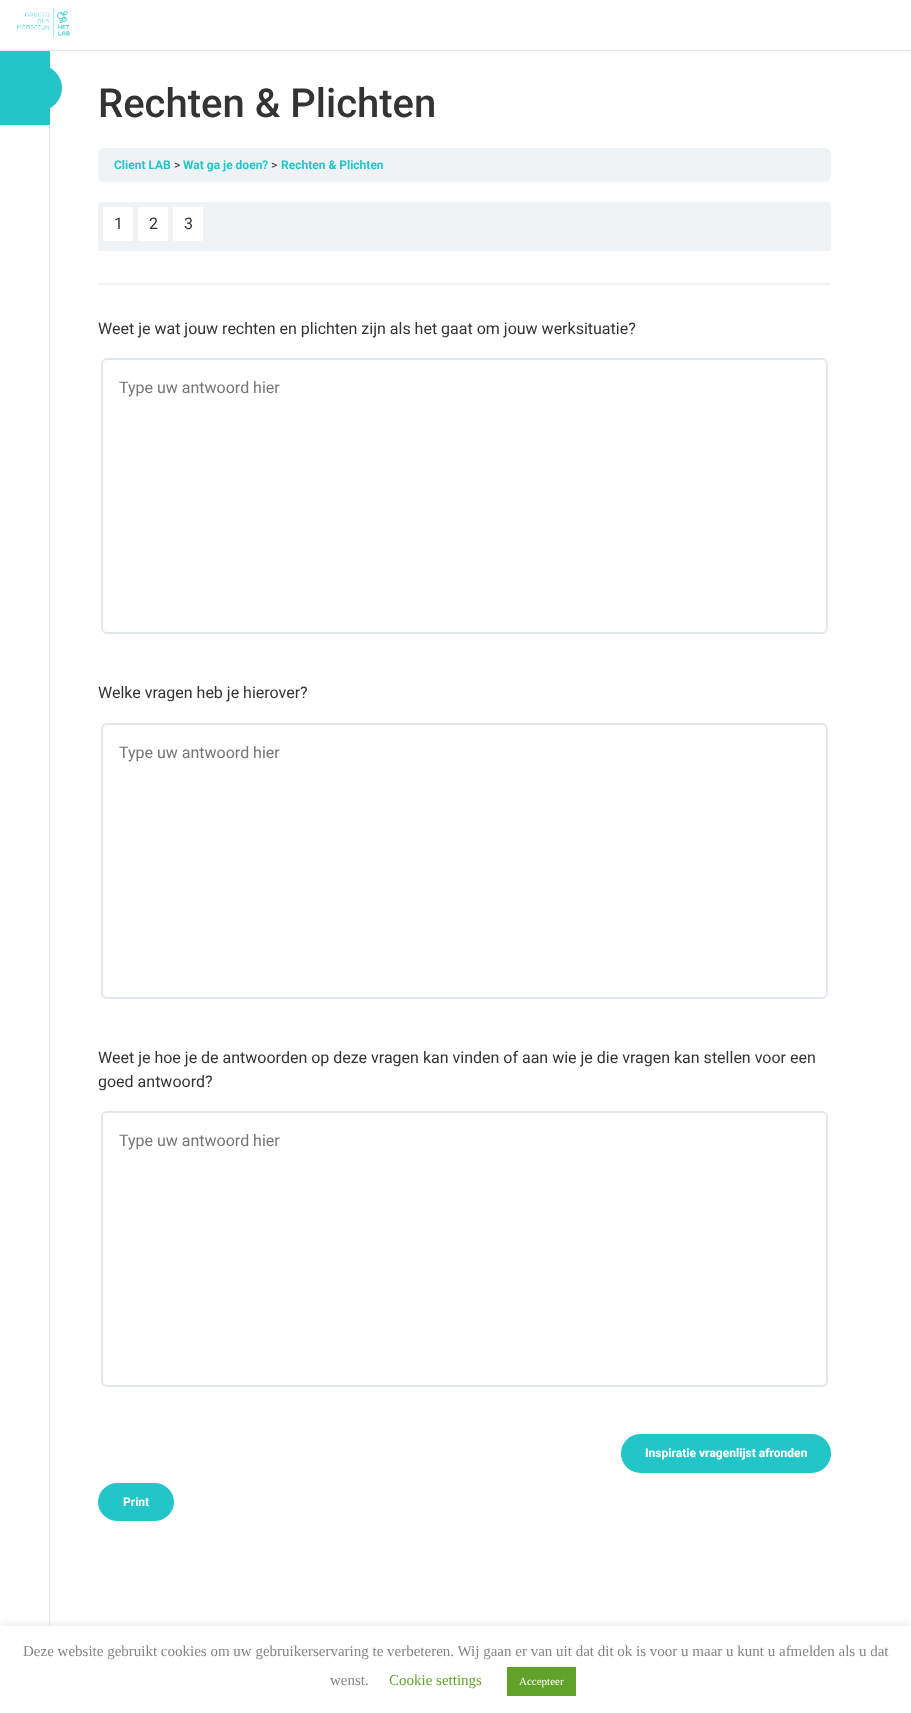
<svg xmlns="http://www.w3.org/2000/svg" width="911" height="1713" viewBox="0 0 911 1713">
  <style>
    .t1 { font: 500 40px Roboto; fill: #333; }
    .t2 { font: bold 12px Roboto; fill: #23c6c8; }
    .t3 { font: 12px Roboto; fill: #333; }
    .t4 { font: 16px Roboto; fill: #333; }
    .t5 { font: 16px Roboto; fill: #757575; }
    .t6 { font: 800 12px Roboto; fill: #fff; }
    .t7 { font: bold 12px Roboto; fill: #fff; }
    .t8 { font: 15px Liberation Serif; fill: #848484; }
    .t9 { font: 15px Liberation Serif; fill: #62a329; }
    .t10 { font: 11px Liberation Serif; fill: #fff; }
  </style>
  <rect width="100%" height="100%" fill="#fff"/>
  <rect x="49" y="125" width="1" height="1501" fill="#e2e7ed"/>
  <rect x="0" y="51" width="50" height="74" fill="#23c6c8"/>
  <circle cx="39" cy="88" r="23" fill="#23c6c8"/>
  <rect x="0" y="50" width="911" height="1" fill="#e2e7ed"/>
  <image x="17" y="8" width="53" height="30" href="images/1.png"/>
  <text x="98" y="117" class="t1">Rechten &amp; Plichten</text>
  <rect x="98" y="148" width="733" height="34" rx="6" fill="#f0f3f6"/>
  <text x="114" y="169" class="t2">Client LAB</text>
  <text x="174" y="169" class="t3">&gt;</text>
  <text x="183" y="169" class="t2">Wat ga je doen?</text>
  <text x="271" y="169" class="t3">&gt;</text>
  <text x="281" y="169" class="t2">Rechten &amp; Plichten</text>
  <rect x="98" y="283" width="733" height="2" fill="#f0f3f6"/>
  <rect x="98" y="202" width="733" height="49" rx="3" fill="#f0f3f6"/>
  <rect x="103" y="207" width="30" height="34" rx="2" fill="#fff"/>
  <text x="114" y="229" class="t4">1</text>
  <rect x="138" y="207" width="30" height="34" rx="2" fill="#fff"/>
  <text x="149" y="229" class="t4">2</text>
  <rect x="173" y="207" width="30" height="34" rx="2" fill="#fff"/>
  <text x="184" y="229" class="t4">3</text>
  <text x="98" y="334" class="t4">Weet je wat jouw rechten en plichten zijn als het gaat om jouw werksituatie?</text>
  <rect x="102" y="359" width="725" height="274" rx="5" fill="none" stroke="#e2e7ed" stroke-width="2"/>
  <text x="119" y="393" class="t5">Type uw antwoord hier</text>
  <text x="98" y="698" class="t4">Welke vragen heb je hierover?</text>
  <rect x="102" y="724" width="725" height="274" rx="5" fill="none" stroke="#e2e7ed" stroke-width="2"/>
  <text x="119" y="758" class="t5">Type uw antwoord hier</text>
  <text x="98" y="1063" class="t4">Weet je hoe je de antwoorden op deze vragen kan vinden of aan wie je die vragen kan stellen voor een</text>
  <text x="98" y="1087" class="t4">goed antwoord?</text>
  <rect x="102" y="1112" width="725" height="274" rx="5" fill="none" stroke="#e2e7ed" stroke-width="2"/>
  <text x="119" y="1146" class="t5">Type uw antwoord hier</text>
  <rect x="621" y="1434" width="210" height="39" rx="19.5" fill="#23c6c8"/>
  <text x="645" y="1457" class="t6">Inspiratie vragenlijst afronden</text>
  <rect x="98.5" y="1483.5" width="75" height="37" rx="18.5" fill="#23c6c8" stroke="#23c6c8"/>
  <text x="123" y="1506" class="t7">Print</text>
  <rect x="0" y="1625" width="911" height="87" fill="#acabab4d" filter="blur(5px)"/>
  <rect x="0" y="1626" width="911" height="87" fill="#fff"/>
  <text x="23" y="1656" class="t8">Deze website gebruikt cookies om uw gebruikerservaring te verbeteren. Wij gaan er van uit dat dit ok is voor u maar u kunt u afmelden als u dat</text>
  <text x="330" y="1685" class="t8">wenst.</text>
  <text x="389" y="1685" class="t9">Cookie settings</text>
  <rect x="507" y="1667" width="69" height="29" fill="#61a229"/>
  <text x="519" y="1685" class="t10">Accepteer</text>
</svg>
